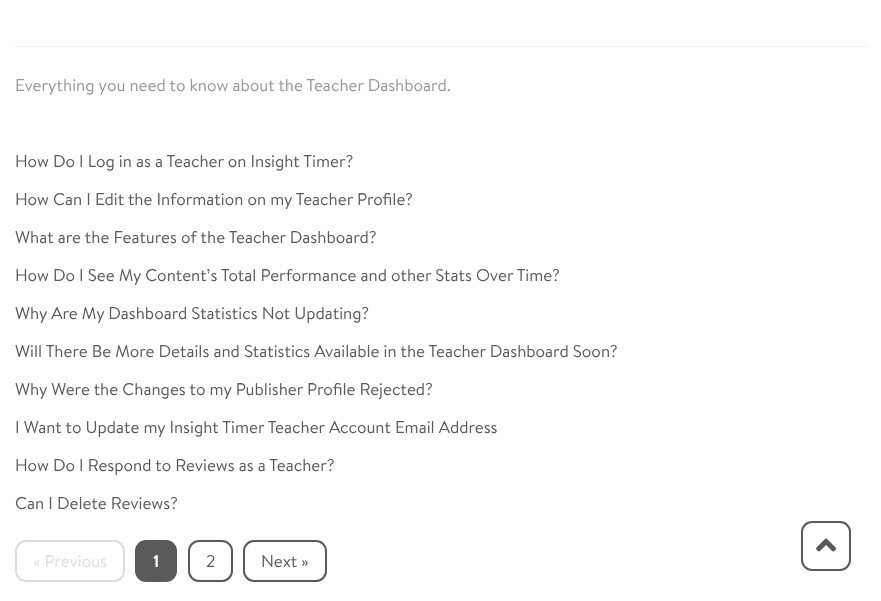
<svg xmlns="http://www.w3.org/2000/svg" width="881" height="601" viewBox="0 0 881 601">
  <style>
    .t1 { font: 17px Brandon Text; fill: #979797; }
    .t2 { font: 17px Brandon Text; fill: #5a5a5a; }
    .t3 { font: 17px Brandon Text; fill: #ddd; }
    .t4 { font: bold 17px Brandon Text; fill: #fff; }
  </style>
  <rect width="100%" height="100%" fill="#fff"/>
  <rect x="15" y="46" width="851" height="1" fill="#eceeef"/>
  <text x="15" y="91" class="t1">Everything you need to know about the Teacher Dashboard.</text>
  <text x="15" y="167" class="t2">How Do I Log in as a Teacher on Insight Timer?</text>
  <text x="15" y="205" class="t2">How Can I Edit the Information on my Teacher Profile?</text>
  <text x="15" y="243" class="t2">What are the Features of the Teacher Dashboard?</text>
  <text x="15" y="281" class="t2">How Do I See My Content’s Total Performance and other Stats Over Time?</text>
  <text x="15" y="319" class="t2">Why Are My Dashboard Statistics Not Updating?</text>
  <text x="15" y="357" class="t2">Will There Be More Details and Statistics Available in the Teacher Dashboard Soon?</text>
  <text x="15" y="395" class="t2">Why Were the Changes to my Publisher Profile Rejected?</text>
  <text x="15" y="433" class="t2">I Want to Update my Insight Timer Teacher Account Email Address</text>
  <text x="15" y="471" class="t2">How Do I Respond to Reviews as a Teacher?</text>
  <text x="15" y="509" class="t2">Can I Delete Reviews?</text>
  <rect x="16" y="541" width="108" height="40" rx="10" fill="none" stroke="#ddd" stroke-width="2"/>
  <text x="33" y="567" class="t3">« Previous</text>
  <rect x="136" y="541" width="40" height="40" rx="10" fill="#5a5a5a" stroke="#5a5a5a" stroke-width="2"/>
  <text x="153" y="567" class="t4">1</text>
  <rect x="189" y="541" width="43" height="40" rx="10" fill="none" stroke="#5a5a5a" stroke-width="2"/>
  <text x="206" y="567" class="t2">2</text>
  <rect x="244" y="541" width="82" height="40" rx="10" fill="none" stroke="#5a5a5a" stroke-width="2"/>
  <text x="261" y="567" class="t2">Next »</text>
  <rect x="802" y="522" width="48" height="48" rx="10" fill="none" stroke="#5a5a5a" stroke-width="2"/>
  <image x="816" y="538" width="20" height="14" href="images/1.png"/>
</svg>
